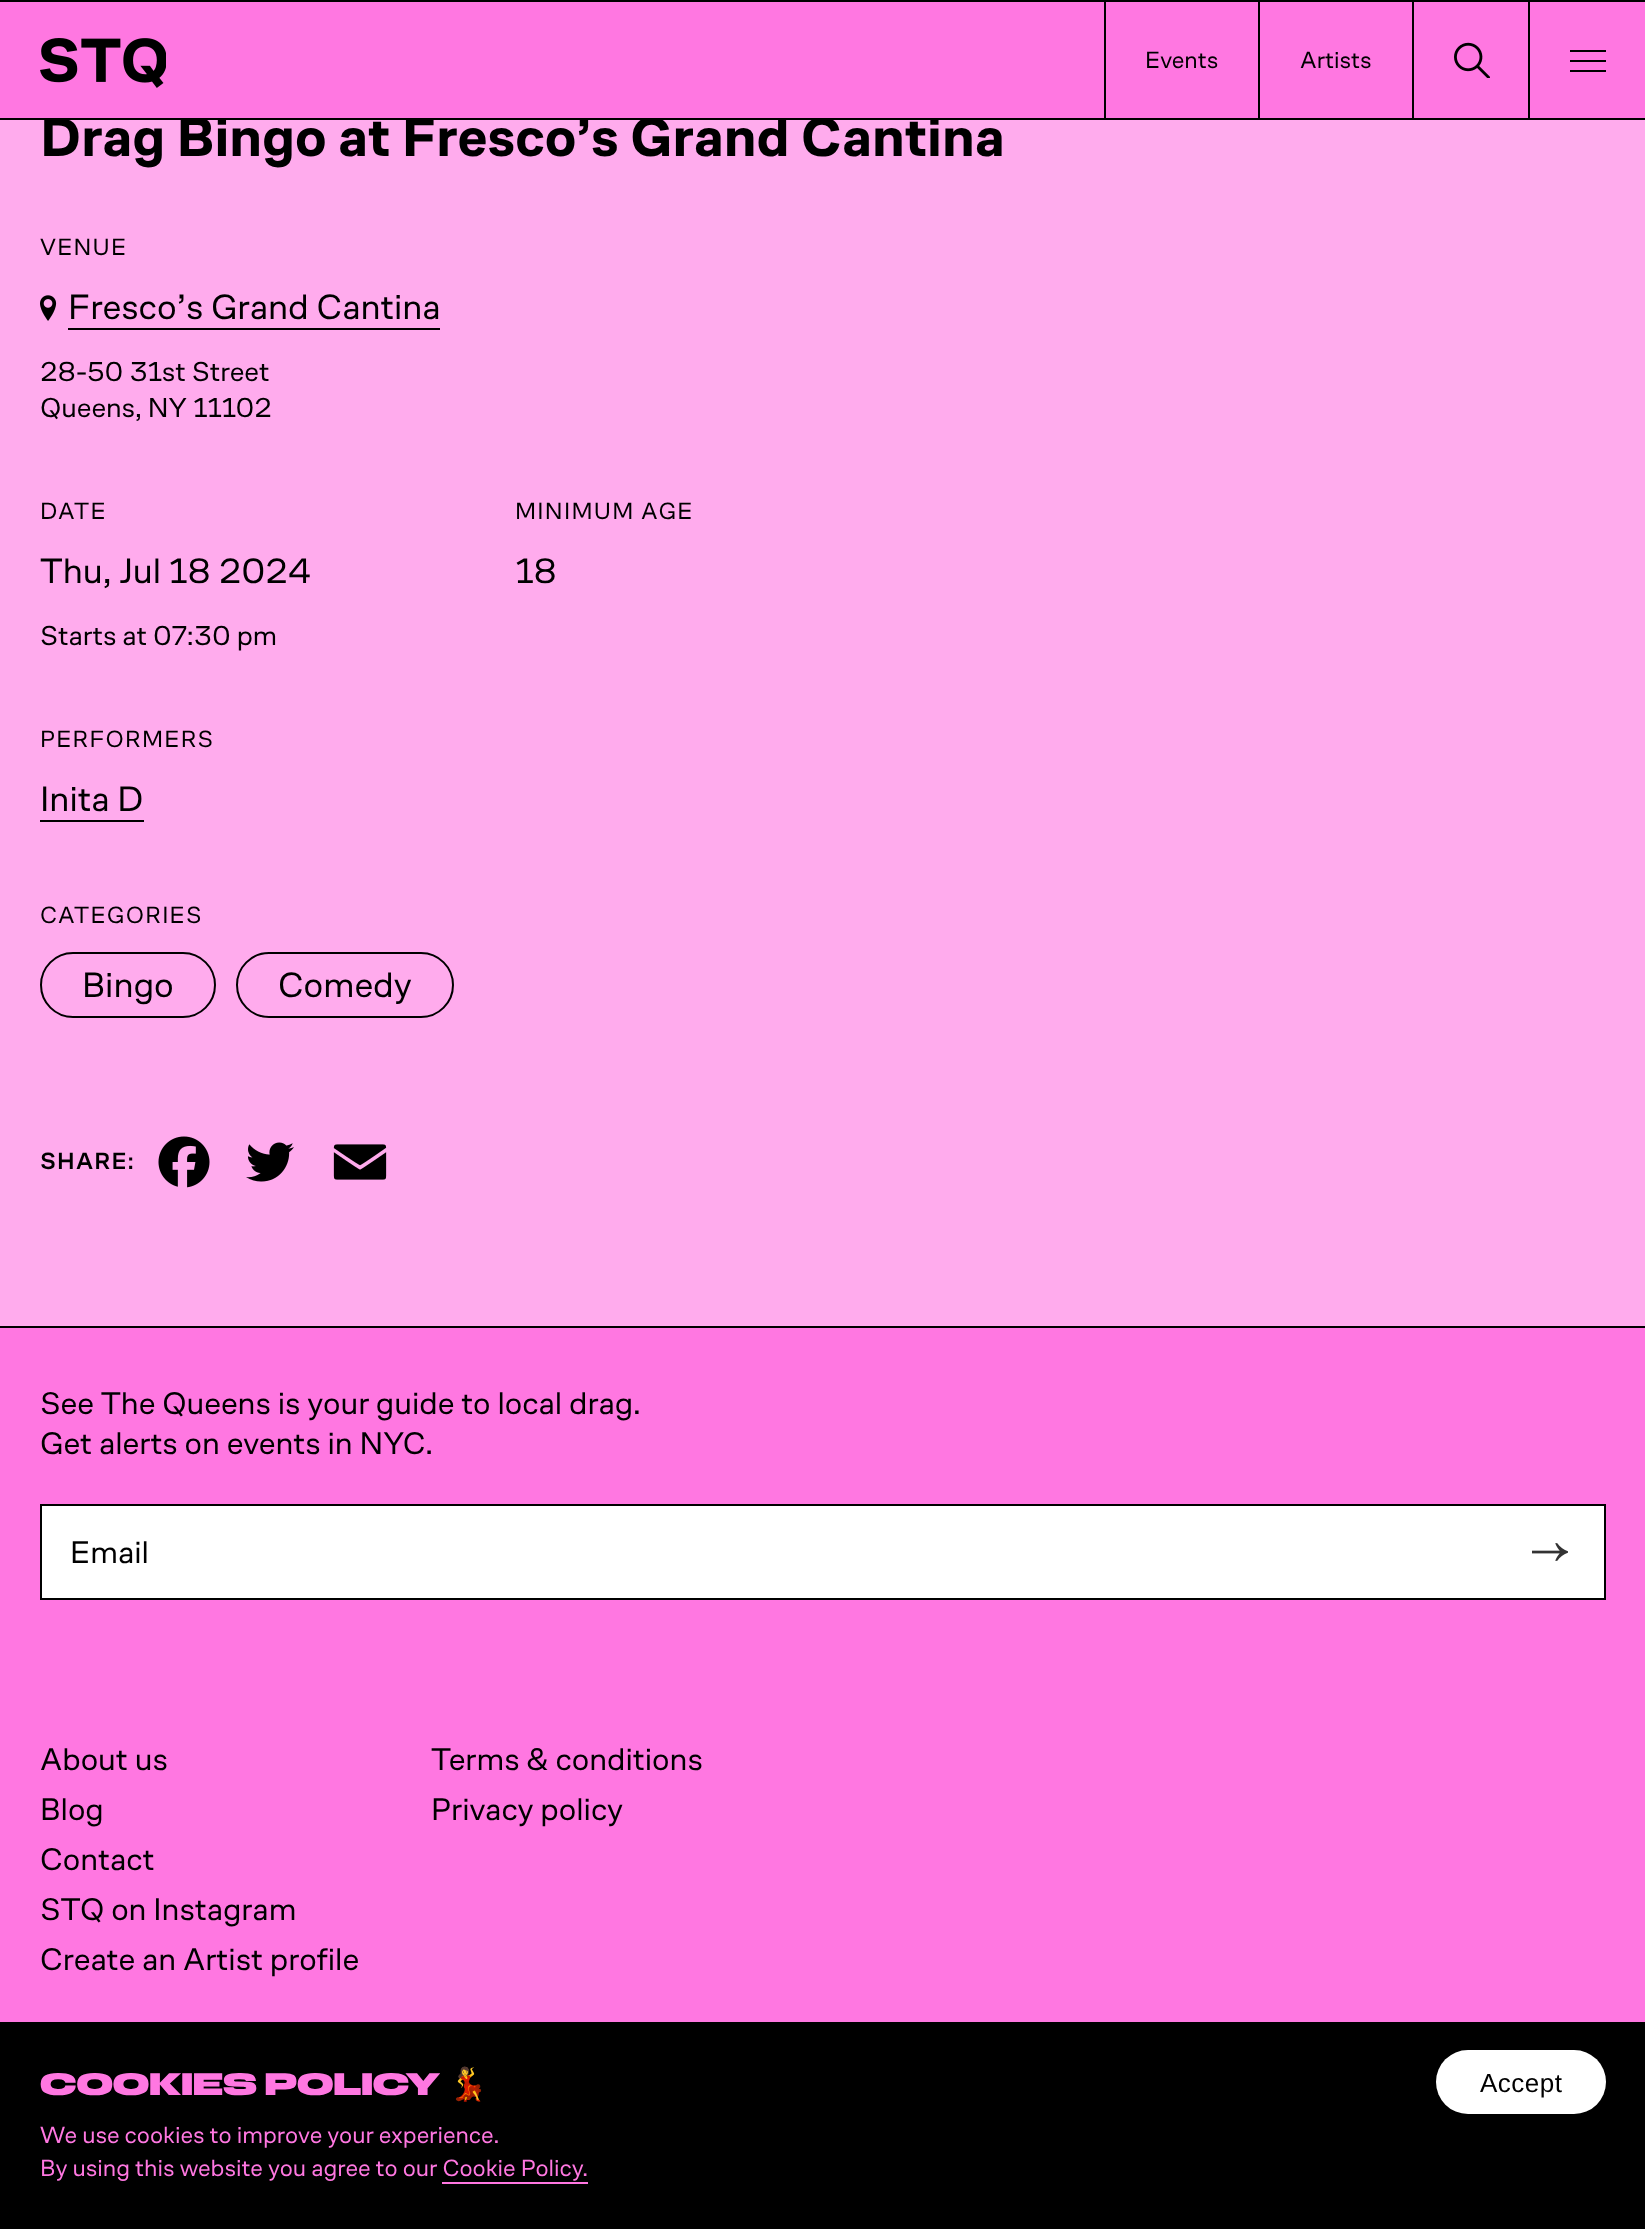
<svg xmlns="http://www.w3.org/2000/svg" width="1645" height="2229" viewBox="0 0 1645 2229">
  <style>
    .t1 { font: bold 56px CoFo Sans; fill: #000; }
    .t2 { font: 24px CoFo Sans; fill: #000; }
    .t3 { font: 24px CoFo Sans; letter-spacing: 1.25px; fill: #000; }
    .t4 { font: 36px CoFo Sans; fill: #000; }
    .t5 { font: 28px CoFo Sans; fill: #000; }
    .t6 { font: 500 24px CoFo Sans; letter-spacing: 1.25px; fill: #000; }
    .t7 { font: 32px CoFo Sans; fill: #000; }
    .t8 { font: italic 900 32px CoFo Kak; fill: #ff77e1; }
    .t9 { font: bold 32px Noto Color Emoji; fill: #ff77e1; }
    .t10 { font: 24px CoFo Sans; fill: #ff77e1; }
    .t11 { font: 26px Liberation Sans; letter-spacing: 0.5px; fill: #000; }
  </style>
  <rect width="100%" height="100%" fill="#ffabed"/>
  <text x="40" y="156" class="t1">Drag Bingo at Fresco’s Grand Cantina</text>
  <rect x="0" y="2" width="1645" height="116" fill="#ff77e1"/>
  <rect x="0" y="0" width="1645" height="2" fill="#000"/>
  <rect x="0" y="118" width="1645" height="2" fill="#000"/>
  <image x="40" y="38" width="126" height="50" href="images/1.png"/>
  <rect x="1412" y="2" width="2" height="116" fill="#000"/>
  <rect x="1258" y="2" width="2" height="116" fill="#000"/>
  <rect x="1104" y="2" width="2" height="116" fill="#000"/>
  <text x="1145" y="68" class="t2">Events</text>
  <text x="1300" y="68" class="t2">Artists</text>
  <rect x="1528" y="2" width="2" height="116" fill="#000"/>
  <image x="1454" y="42" width="36" height="36" href="images/2.png"/>
  <rect x="1570" y="50" width="36" height="2" fill="#000"/>
  <rect x="1570" y="60" width="36" height="2" fill="#000"/>
  <rect x="1570" y="70" width="36" height="2" fill="#000"/>
  <text x="40" y="255" class="t3">VENUE</text>
  <image x="40" y="295" width="17" height="26" href="images/3.png"/>
  <rect x="68" y="328" width="372" height="2" fill="#000"/>
  <text x="68" y="319" class="t4">Fresco’s Grand Cantina</text>
  <text x="40" y="381" class="t5">28-50 31st Street</text>
  <text x="40" y="417" class="t5">Queens, NY 11102</text>
  <text x="40" y="519" class="t3">DATE</text>
  <text x="40" y="583" class="t4">Thu, Jul 18 2024</text>
  <text x="40" y="645" class="t5">Starts at 07:30 pm</text>
  <text x="515" y="519" class="t3">MINIMUM AGE</text>
  <text x="515" y="583" class="t4">18</text>
  <text x="40" y="747" class="t3">PERFORMERS</text>
  <text x="40" y="811" class="t4">Inita D</text>
  <rect x="40" y="820" width="104" height="2" fill="#000"/>
  <text x="40" y="923" class="t3">CATEGORIES</text>
  <rect x="41" y="953" width="174" height="64" rx="32" fill="none" stroke="#000" stroke-width="2"/>
  <text x="82" y="997" class="t4">Bingo</text>
  <rect x="237" y="953" width="216" height="64" rx="32" fill="none" stroke="#000" stroke-width="2"/>
  <text x="278" y="997" class="t4">Comedy</text>
  <text x="40" y="1169" class="t6">SHARE:</text>
  <image x="158" y="1136" width="52" height="52" href="images/4.png"/>
  <image x="246" y="1142" width="48" height="40" href="images/5.png"/>
  <image x="333" y="1144" width="54" height="36" href="images/6.png"/>
  <rect x="0" y="1328" width="1645" height="694" fill="#ff77e1"/>
  <rect x="0" y="1326" width="1645" height="2" fill="#000"/>
  <text x="40" y="1414" class="t7">See The Queens is your guide to local drag.</text>
  <text x="40" y="1454" class="t7">Get alerts on events in NYC.</text>
  <rect x="41" y="1505" width="1564" height="94" fill="#fff" stroke="#000" stroke-width="2"/>
  <text x="70" y="1563" class="t7">Email</text>
  <image x="1532" y="1543" width="36" height="18" href="images/7.png"/>
  <text x="40" y="1770" class="t7">About us</text>
  <text x="40" y="1820" class="t7">Blog</text>
  <text x="40" y="1870" class="t7">Contact</text>
  <text x="40" y="1920" class="t7">STQ on Instagram</text>
  <text x="40" y="1970" class="t7">Create an Artist profile</text>
  <text x="431" y="1770" class="t7">Terms &amp; conditions</text>
  <text x="431" y="1820" class="t7">Privacy policy</text>
  <rect x="0" y="2022" width="1645" height="207" fill="#000"/>
  <text x="40" y="2095" class="t8">COOKIES POLICY</text>
  <text x="448" y="2095" class="t9">💃</text>
  <text x="40" y="2143" class="t10">We use cookies to improve your experience.</text>
  <text x="40" y="2176" class="t10">By using this website you agree to our Cookie Policy.</text>
  <rect x="442" y="2182" width="146" height="2" fill="#ff77e1"/>
  <rect x="1436" y="2050" width="170" height="64" rx="32" fill="#fff"/>
  <text x="1480" y="2092" class="t11">Accept</text>
</svg>
